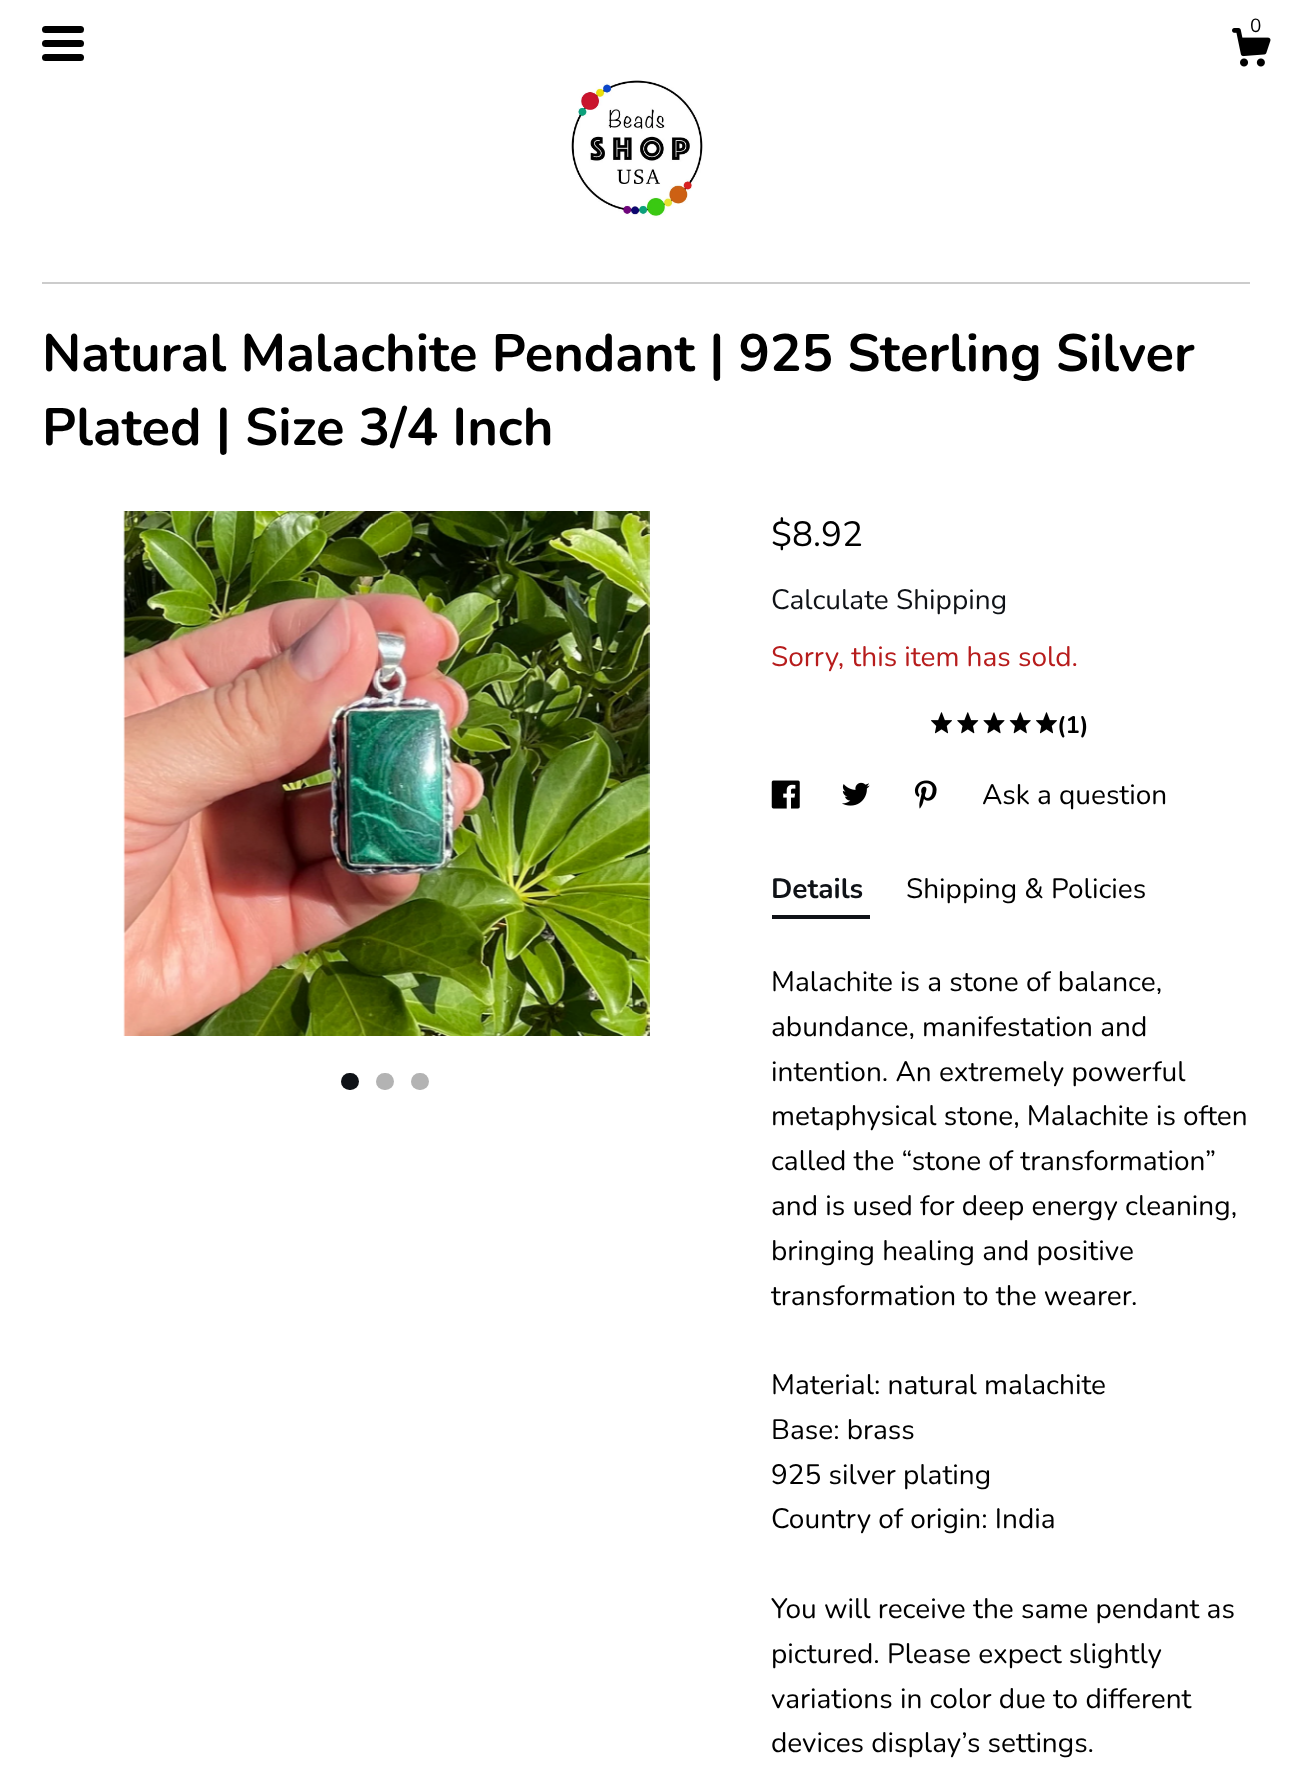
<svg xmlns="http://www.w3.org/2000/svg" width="1291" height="1772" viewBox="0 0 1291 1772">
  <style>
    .t1 { font: 19px Nunito; fill: #000; }
    .t2 { font: bold 52.5px Nunito; fill: #000; }
    .t3 { font: 35px Nunito; fill: #000; }
    .t4 { font: 28px Nunito; fill: #0f1217; }
    .t5 { font: 28px Nunito; fill: #b71c1c; }
    .t6 { font: bold 24px Nunito; fill: #000; }
    .t7 { font: 28px Nunito; fill: #000; }
    .t8 { font: bold 28px Nunito; fill: #0f1217; }
  </style>
  <rect width="100%" height="100%" fill="#fff"/>
  <rect x="42" y="26" width="42" height="7" rx="3.5" fill="#000"/>
  <rect x="42" y="40" width="42" height="7" rx="3.5" fill="#000"/>
  <rect x="42" y="54" width="42" height="7" rx="3.5" fill="#000"/>
  <image x="1232" y="28" width="39" height="39" href="images/1.png"/>
  <text x="1250" y="32" class="t1">0</text>
  <image x="571" y="80" width="132" height="138" href="images/2.png"/>
  <rect x="42" y="282" width="1208" height="2" fill="#ccc"/>
  <text x="42" y="371" class="t2">Natural Malachite Pendant | 925 Sterling Silver</text>
  <text x="42" y="445" class="t2">Plated | Size 3/4 Inch</text>
  <image x="123" y="511" width="527" height="525" href="images/3.png"/>
  <rect x="341" y="1073" width="18" height="17" rx="8.5" fill="#0f1217"/>
  <rect x="376" y="1073" width="18" height="17" rx="8.5" fill="#b3b3b3"/>
  <rect x="411" y="1073" width="18" height="17" rx="8.5" fill="#b3b3b3"/>
  <text x="771" y="546" class="t3">$8.92</text>
  <text x="771" y="609" class="t4">Calculate Shipping</text>
  <text x="771" y="666" class="t5">Sorry, this item has sold.</text>
  <image x="931" y="712" width="21" height="22" href="images/4.png"/>
  <image x="957" y="712" width="22" height="22" href="images/5.png"/>
  <image x="983" y="712" width="22" height="22" href="images/6.png"/>
  <image x="1009" y="712" width="22" height="22" href="images/7.png"/>
  <image x="1036" y="712" width="21" height="22" href="images/4.png"/>
  <text x="1057" y="733" class="t6">(1)</text>
  <image x="771" y="780" width="29" height="29" href="images/8.png"/>
  <image x="842" y="782" width="28" height="24" href="images/9.png"/>
  <image x="914" y="780" width="23" height="29" href="images/10.png"/>
  <text x="982" y="804" class="t7">Ask a question</text>
  <text x="771" y="898" class="t8">Details</text>
  <rect x="772" y="915" width="98" height="4" fill="#0f1217"/>
  <text x="906" y="898" class="t7">Shipping &amp; Policies</text>
  <text x="771" y="991" class="t7">Malachite is a stone of balance,</text>
  <text x="771" y="1036" class="t7">abundance, manifestation and</text>
  <text x="771" y="1081" class="t7">intention. An extremely powerful</text>
  <text x="771" y="1125" class="t7">metaphysical stone, Malachite is often</text>
  <text x="771" y="1170" class="t7">called the “stone of transformation”</text>
  <text x="771" y="1215" class="t7">and is used for deep energy cleaning,</text>
  <text x="771" y="1260" class="t7">bringing healing and positive</text>
  <text x="771" y="1305" class="t7">transformation to the wearer.</text>
  <text x="771" y="1394" class="t7">Material: natural malachite</text>
  <text x="771" y="1439" class="t7">Base: brass</text>
  <text x="771" y="1484" class="t7">925 silver plating</text>
  <text x="771" y="1528" class="t7">Country of origin: India</text>
  <text x="771" y="1618" class="t7">You will receive the same pendant as</text>
  <text x="771" y="1663" class="t7">pictured. Please expect slightly</text>
  <text x="771" y="1708" class="t7">variations in color due to different</text>
  <text x="771" y="1752" class="t7">devices display’s settings.</text>
</svg>
